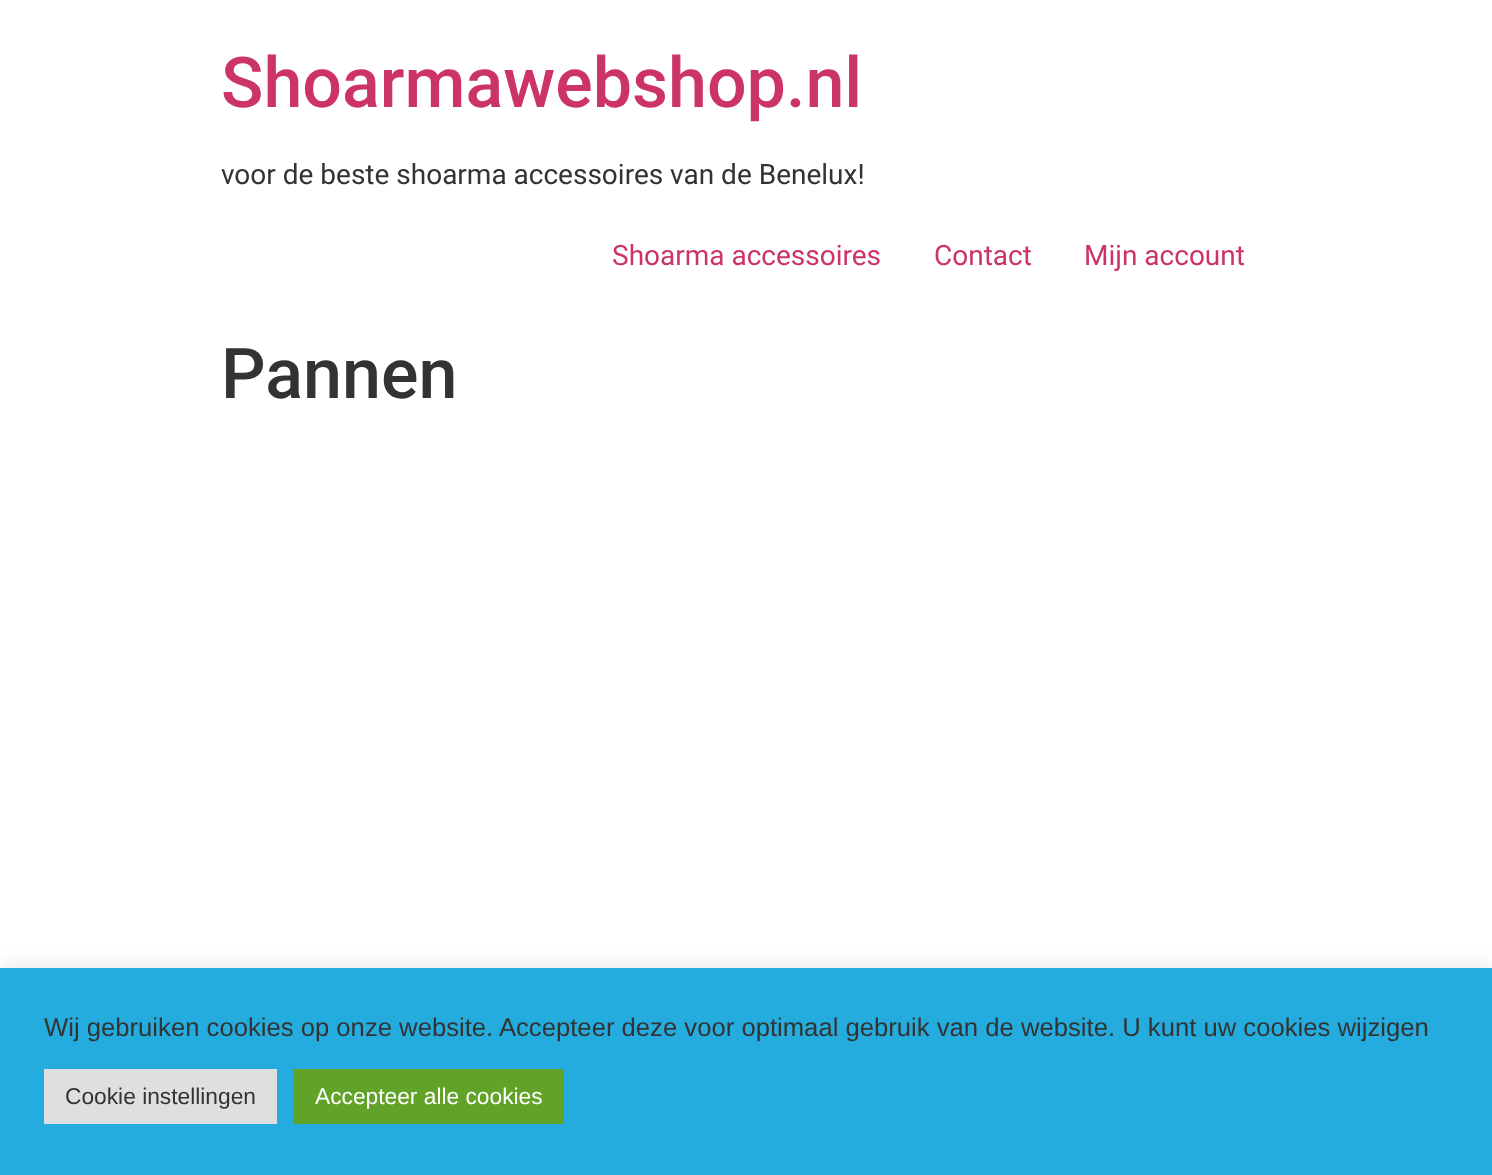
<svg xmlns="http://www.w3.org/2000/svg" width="1492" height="1175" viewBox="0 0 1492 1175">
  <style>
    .t1 { font: 500 70px Roboto; fill: #c36; }
    .t2 { font: 28px Roboto; fill: #333; }
    .t3 { font: 28px Roboto; fill: #c36; }
    .t4 { font: 500 70px Roboto; fill: #333; }
    .t5 { font: 25.67px Liberation Sans; fill: #333; }
    .t6 { font: 22.75px Liberation Sans; fill: #333; }
    .t7 { font: 22.75px Liberation Sans; fill: #fff; }
  </style>
  <rect width="100%" height="100%" fill="#fff"/>
  <text x="221" y="107" class="t1">Shoarmawebshop.nl</text>
  <text x="221" y="184" class="t2">voor de beste shoarma accessoires van de Benelux!</text>
  <text x="612" y="265" class="t3">Shoarma accessoires</text>
  <text x="934" y="265" class="t3">Contact</text>
  <text x="1084" y="265" class="t3">Mijn account</text>
  <text x="221" y="398" class="t4">Pannen</text>
  <rect x="0" y="966" width="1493" height="208" fill="#acabab4d" filter="blur(9px)"/>
  <rect x="0" y="968" width="1492" height="207" fill="#23acdd"/>
  <text x="44" y="1036" class="t5">Wij gebruiken cookies op onze website. Accepteer deze voor optimaal gebruik van de website. U kunt uw cookies wijzigen</text>
  <rect x="44" y="1069" width="233" height="55" fill="#dedfe0"/>
  <text x="65" y="1104" class="t6">Cookie instellingen</text>
  <rect x="294" y="1069" width="270" height="55" fill="#61a229"/>
  <text x="315" y="1104" class="t7">Accepteer alle cookies</text>
</svg>
